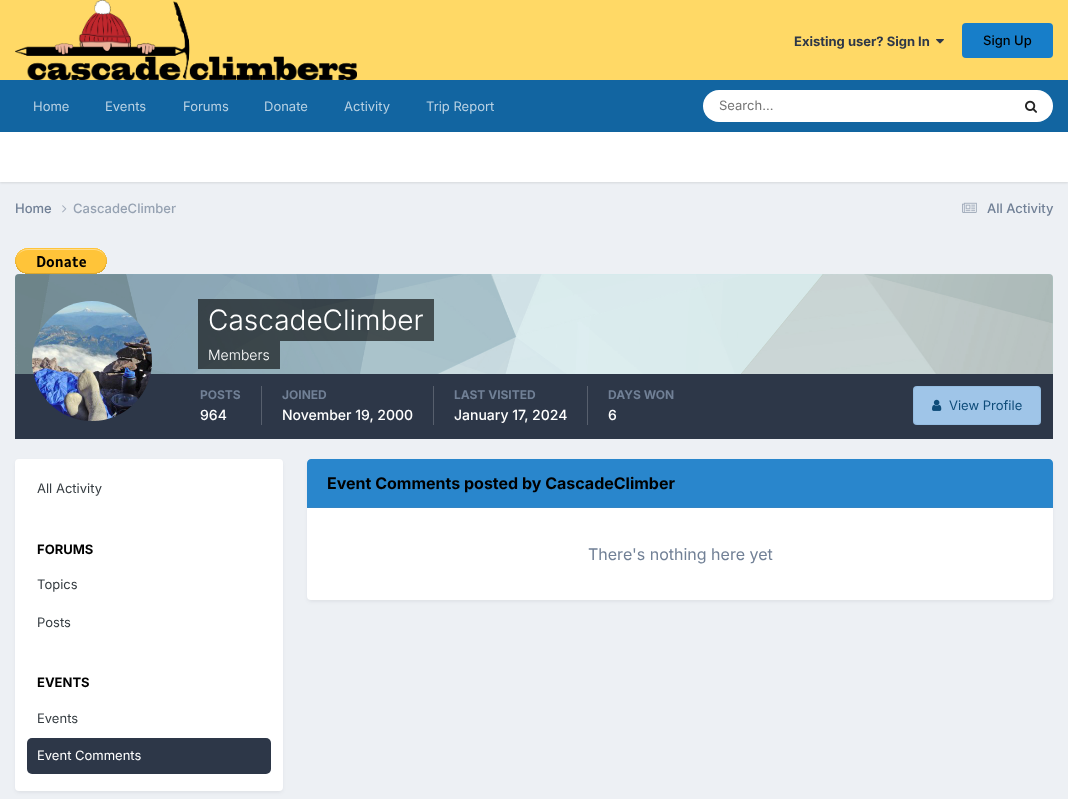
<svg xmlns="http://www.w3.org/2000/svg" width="1068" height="799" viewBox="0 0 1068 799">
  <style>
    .t1 { font: bold 13px Inter; fill: #2d3748; }
    .t2 { font: 500 13px Inter; fill: #000; }
    .t3 { font: 13px Inter; fill: #b8d1e3; }
    .t4 { font: 13px Inter; fill: #757575; }
    .t5 { font: 500 13px Inter; fill: #718096; }
    .t6 { font: 500 13px Inter; fill: #96a2b2; }
    .t7 { font: 300 28px Inter; fill: #fff; }
    .t8 { font: 300 14px Inter; fill: #fff; }
    .t9 { font: bold 12px Inter; fill: #718096; }
    .t10 { font: 500 14px Inter; fill: #fff; }
    .t11 { font: 13px Inter; fill: #0e4c79; }
    .t12 { font: 13px Inter; fill: #353c41; }
    .t13 { font: bold 13px Inter; fill: #000; }
    .t14 { font: 13px Inter; fill: #fff; }
    .t15 { font: bold 16px Inter; fill: #000; }
    .t16 { font: 16px Inter; fill: #718096; }
  </style>
  <rect width="100%" height="100%" fill="#edf0f4"/>
  <rect x="0" y="0" width="1068" height="80" fill="#ffd966"/>
  <image x="15" y="0" width="342" height="80" href="images/1.png"/>
  <text x="794" y="46" class="t1">Existing user? Sign In</text>
  <image x="936" y="39" width="8" height="5" href="images/2.png"/>
  <rect x="962" y="23" width="91" height="35" rx="4" fill="#177ec9"/>
  <text x="983" y="45" class="t2">Sign Up</text>
  <rect x="0" y="80" width="1068" height="52" fill="#1265a1"/>
  <text x="33" y="111" class="t3">Home</text>
  <text x="105" y="111" class="t3">Events</text>
  <text x="183" y="111" class="t3">Forums</text>
  <text x="264" y="111" class="t3">Donate</text>
  <text x="344" y="111" class="t3">Activity</text>
  <text x="426" y="111" class="t3">Trip Report</text>
  <rect x="703" y="90" width="350" height="32" rx="16" fill="#fff"/>
  <text x="719" y="110" class="t4">Search...</text>
  <image x="1025" y="100" width="12" height="13" href="images/3.png"/>
  <rect x="0" y="133" width="1068" height="50" fill="#0000001a" filter="blur(1px)"/>
  <rect x="0" y="132" width="1068" height="50" fill="#fff"/>
  <text x="15" y="213" class="t5">Home</text>
  <image x="62" y="205" width="5" height="8" href="images/4.png"/>
  <text x="73" y="213" class="t6">CascadeClimber</text>
  <image x="962" y="202" width="15" height="11" href="images/5.png"/>
  <text x="987" y="213" class="t5">All Activity</text>
  <image x="15" y="248" width="92" height="26" href="images/6.png"/>
  <path d="M19 274H1049C1051 274 1053 276 1053 278V374H15V278C15 276 17 274 19 274Z" fill="#9ef"/>
  <image x="15" y="274" width="1038" height="100" href="images/7.png"/>
  <rect x="15" y="374" width="1038" height="65" fill="#2d3748"/>
  <image x="32" y="301" width="120" height="120" href="images/8.png"/>
  <rect x="198" y="299" width="236" height="42" fill="#00000099"/>
  <text x="208" y="330" class="t7">CascadeClimber</text>
  <rect x="198" y="341" width="82" height="28" fill="#00000099"/>
  <text x="208" y="360" class="t8">Members</text>
  <rect x="261" y="386" width="1" height="39" fill="#575f6d"/>
  <text x="200" y="399" class="t9">POSTS</text>
  <text x="200" y="420" class="t10">964</text>
  <rect x="433" y="386" width="1" height="39" fill="#575f6d"/>
  <text x="282" y="399" class="t9">JOINED</text>
  <text x="282" y="420" class="t10">November 19, 2000</text>
  <rect x="587" y="386" width="1" height="39" fill="#575f6d"/>
  <text x="454" y="399" class="t9">LAST VISITED</text>
  <text x="454" y="420" class="t10">January 17, 2024</text>
  <text x="608" y="399" class="t9">DAYS WON</text>
  <text x="608" y="420" class="t10">6</text>
  <rect x="913" y="386" width="128" height="39" rx="4" fill="#9fc5e8"/>
  <rect x="913.5" y="386.5" width="127" height="38" rx="3.5" fill="none" stroke="#0e4c7912"/>
  <image x="932" y="399" width="10" height="12" href="images/9.png"/>
  <text x="949" y="410" class="t11">View Profile</text>
  <rect x="16" y="462" width="266" height="330" rx="3" fill="#2d37481a" filter="blur(2px)"/>
  <rect x="15" y="459" width="268" height="332" rx="4" fill="#fff"/>
  <text x="37" y="493" class="t12">All Activity</text>
  <text x="37" y="554" class="t13">FORUMS</text>
  <text x="37" y="589" class="t12">Topics</text>
  <text x="37" y="627" class="t12">Posts</text>
  <text x="37" y="687" class="t13">EVENTS</text>
  <text x="37" y="723" class="t12">Events</text>
  <rect x="27" y="738" width="244" height="36" rx="5" fill="#2d3748"/>
  <text x="37" y="760" class="t14">Event Comments</text>
  <rect x="308" y="462" width="744" height="139" rx="3" fill="#2d37481a" filter="blur(2px)"/>
  <rect x="307" y="459" width="746" height="141" rx="4" fill="#fff"/>
  <path d="M311 459H1049C1051 459 1053 461 1053 463V508H307V463C307 461 309 459 311 459Z" fill="#2986cc"/>
  <rect x="307" y="507" width="746" height="1" fill="#3485c4"/>
  <text x="327" y="489" class="t15">Event Comments posted by CascadeClimber</text>
  <text x="588" y="560" class="t16">There's nothing here yet</text>
</svg>
